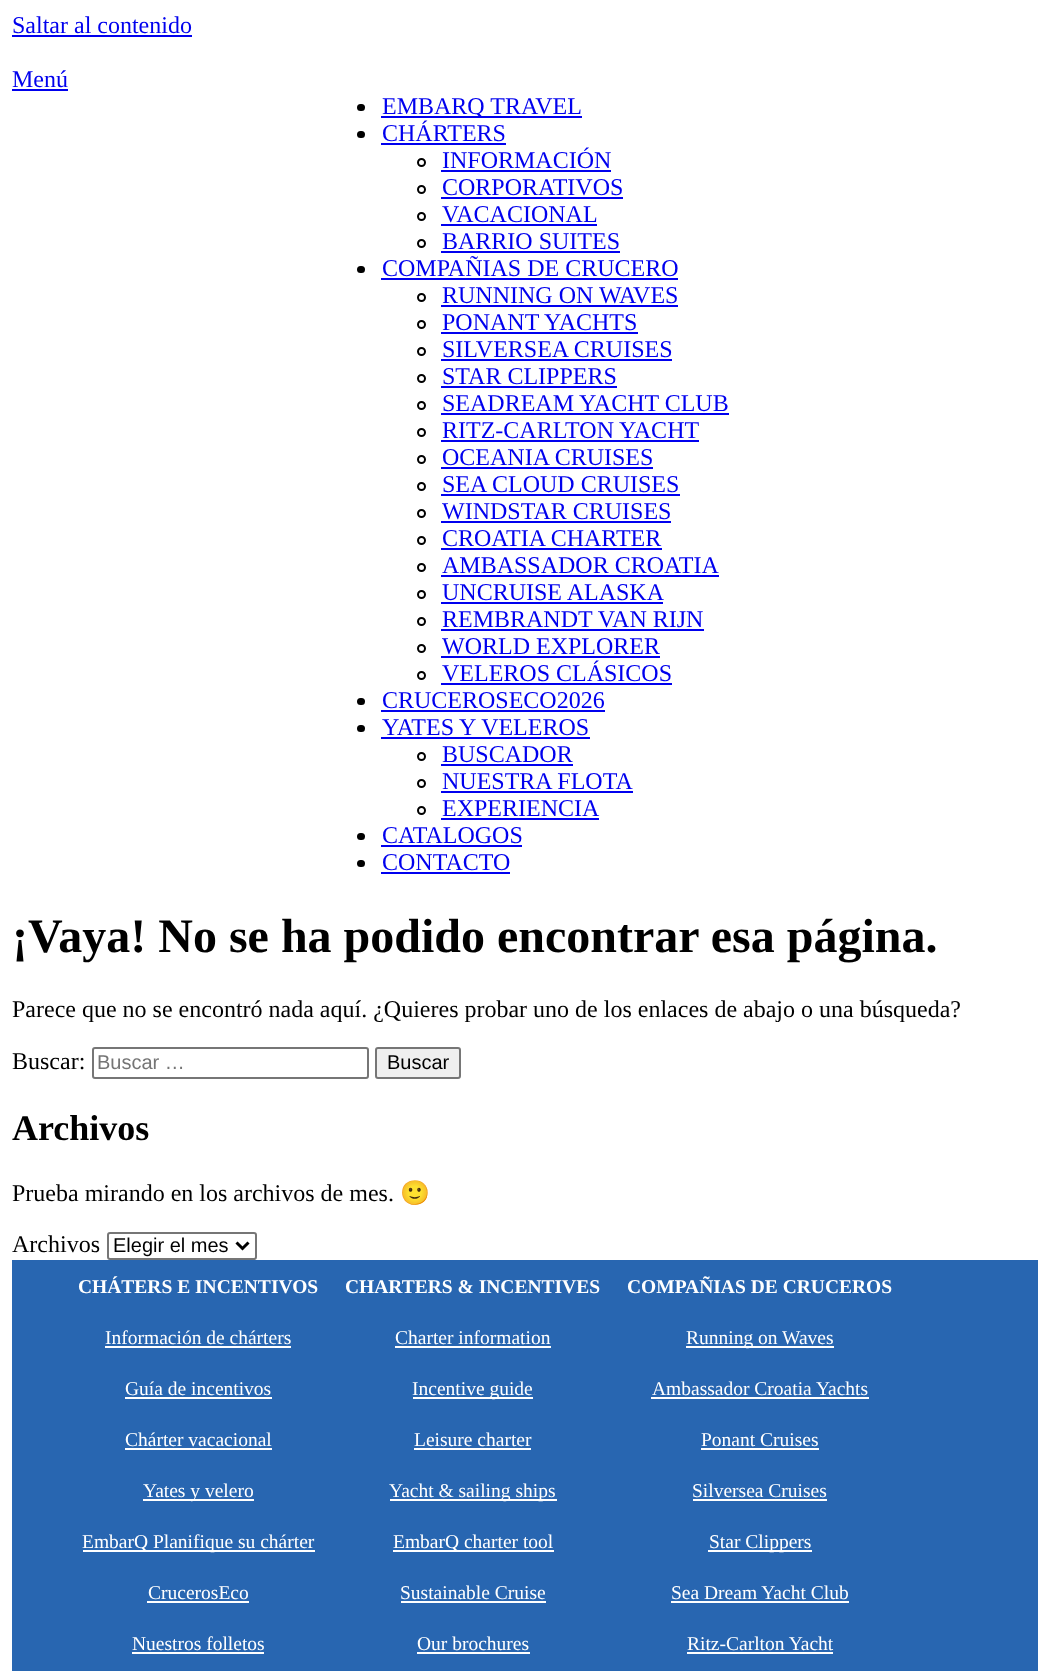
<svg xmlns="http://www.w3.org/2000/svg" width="1049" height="1671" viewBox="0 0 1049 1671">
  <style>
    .t1 { font: 24px Liberation Serif; fill: #00e; }
    .t2 { font: bold 48px Liberation Serif; fill: #000; }
    .t3 { font: 24px Liberation Serif; fill: #000; }
    .t4 { font: 20px Liberation Sans; fill: #757575; }
    .t5 { font: 20px Liberation Sans; fill: #000; }
    .t6 { font: bold 36px Liberation Serif; fill: #000; }
    .t7 { font: 24px Noto Color Emoji; fill: #000; }
    .t8 { font: bold 19.5px Liberation Serif; fill: #fff; }
    .t9 { font: 19.5px Liberation Serif; fill: #fff; }
  </style>
  <rect width="100%" height="100%" fill="#fff"/>
  <text x="12" y="33" class="t1">Saltar al contenido</text>
  <rect x="12" y="35" width="180" height="2" fill="#00e"/>
  <text x="12" y="87" class="t1">Menú</text>
  <rect x="12" y="89" width="56" height="2" fill="#00e"/>
  <rect x="357" y="104" width="8" height="7" rx="3.5" fill="#000"/>
  <rect x="381" y="116" width="201" height="2" fill="#00e"/>
  <text x="382" y="114" class="t1">EMBARQ TRAVEL</text>
  <rect x="357" y="131" width="8" height="7" rx="3.5" fill="#000"/>
  <text x="382" y="141" class="t1">CHÁRTERS</text>
  <rect x="381" y="143" width="125" height="2" fill="#00e"/>
  <circle cx="421.5" cy="162.5" r="3.5" fill="none" stroke="#000" stroke-width="2"/>
  <text x="442" y="168" class="t1">INFORMACIÓN</text>
  <rect x="441" y="170" width="170" height="2" fill="#00e"/>
  <circle cx="421.5" cy="189.5" r="3.5" fill="none" stroke="#000" stroke-width="2"/>
  <text x="442" y="195" class="t1">CORPORATIVOS</text>
  <rect x="441" y="197" width="182" height="2" fill="#00e"/>
  <circle cx="421.5" cy="216.5" r="3.5" fill="none" stroke="#000" stroke-width="2"/>
  <text x="442" y="222" class="t1">VACACIONAL</text>
  <rect x="441" y="224" width="156" height="2" fill="#00e"/>
  <circle cx="421.5" cy="243.5" r="3.5" fill="none" stroke="#000" stroke-width="2"/>
  <text x="442" y="249" class="t1">BARRIO SUITES</text>
  <rect x="441" y="251" width="179" height="2" fill="#00e"/>
  <rect x="357" y="266" width="8" height="7" rx="3.5" fill="#000"/>
  <text x="382" y="276" class="t1">COMPAÑIAS DE CRUCERO</text>
  <rect x="381" y="278" width="297" height="2" fill="#00e"/>
  <circle cx="421.5" cy="297.5" r="3.5" fill="none" stroke="#000" stroke-width="2"/>
  <text x="442" y="303" class="t1">RUNNING ON WAVES</text>
  <rect x="441" y="305" width="237" height="2" fill="#00e"/>
  <circle cx="421.5" cy="324.5" r="3.5" fill="none" stroke="#000" stroke-width="2"/>
  <text x="442" y="330" class="t1">PONANT YACHTS</text>
  <rect x="441" y="332" width="197" height="2" fill="#00e"/>
  <circle cx="421.5" cy="351.5" r="3.5" fill="none" stroke="#000" stroke-width="2"/>
  <text x="442" y="357" class="t1">SILVERSEA CRUISES</text>
  <rect x="441" y="359" width="231" height="2" fill="#00e"/>
  <circle cx="421.5" cy="378.5" r="3.5" fill="none" stroke="#000" stroke-width="2"/>
  <text x="442" y="384" class="t1">STAR CLIPPERS</text>
  <rect x="441" y="386" width="176" height="2" fill="#00e"/>
  <circle cx="421.5" cy="405.5" r="3.5" fill="none" stroke="#000" stroke-width="2"/>
  <text x="442" y="411" class="t1">SEADREAM YACHT CLUB</text>
  <rect x="441" y="413" width="288" height="2" fill="#00e"/>
  <circle cx="421.5" cy="432.5" r="3.5" fill="none" stroke="#000" stroke-width="2"/>
  <text x="442" y="438" class="t1">RITZ-CARLTON YACHT</text>
  <rect x="441" y="440" width="258" height="2" fill="#00e"/>
  <circle cx="421.5" cy="459.5" r="3.5" fill="none" stroke="#000" stroke-width="2"/>
  <text x="442" y="465" class="t1">OCEANIA CRUISES</text>
  <rect x="441" y="467" width="212" height="2" fill="#00e"/>
  <circle cx="421.5" cy="486.5" r="3.5" fill="none" stroke="#000" stroke-width="2"/>
  <text x="442" y="492" class="t1">SEA CLOUD CRUISES</text>
  <rect x="441" y="494" width="239" height="2" fill="#00e"/>
  <circle cx="421.5" cy="513.5" r="3.5" fill="none" stroke="#000" stroke-width="2"/>
  <text x="442" y="519" class="t1">WINDSTAR CRUISES</text>
  <rect x="441" y="521" width="230" height="2" fill="#00e"/>
  <circle cx="421.5" cy="540.5" r="3.5" fill="none" stroke="#000" stroke-width="2"/>
  <text x="442" y="546" class="t1">CROATIA CHARTER</text>
  <rect x="441" y="548" width="221" height="2" fill="#00e"/>
  <circle cx="421.5" cy="567.5" r="3.5" fill="none" stroke="#000" stroke-width="2"/>
  <text x="442" y="573" class="t1">AMBASSADOR CROATIA</text>
  <rect x="441" y="575" width="278" height="2" fill="#00e"/>
  <circle cx="421.5" cy="594.5" r="3.5" fill="none" stroke="#000" stroke-width="2"/>
  <text x="442" y="600" class="t1">UNCRUISE ALASKA</text>
  <rect x="441" y="602" width="222" height="2" fill="#00e"/>
  <circle cx="421.5" cy="621.5" r="3.5" fill="none" stroke="#000" stroke-width="2"/>
  <text x="442" y="627" class="t1">REMBRANDT VAN RIJN</text>
  <rect x="441" y="629" width="263" height="2" fill="#00e"/>
  <circle cx="421.5" cy="648.5" r="3.5" fill="none" stroke="#000" stroke-width="2"/>
  <text x="442" y="654" class="t1">WORLD EXPLORER</text>
  <rect x="441" y="656" width="219" height="2" fill="#00e"/>
  <circle cx="421.5" cy="675.5" r="3.5" fill="none" stroke="#000" stroke-width="2"/>
  <text x="442" y="681" class="t1">VELEROS CLÁSICOS</text>
  <rect x="441" y="683" width="231" height="2" fill="#00e"/>
  <rect x="357" y="698" width="8" height="7" rx="3.5" fill="#000"/>
  <text x="382" y="708" class="t1">CRUCEROSECO2026</text>
  <rect x="381" y="710" width="224" height="2" fill="#00e"/>
  <rect x="357" y="725" width="8" height="7" rx="3.5" fill="#000"/>
  <text x="382" y="735" class="t1">YATES Y VELEROS</text>
  <rect x="381" y="737" width="209" height="2" fill="#00e"/>
  <circle cx="421.5" cy="756.5" r="3.5" fill="none" stroke="#000" stroke-width="2"/>
  <text x="442" y="762" class="t1">BUSCADOR</text>
  <rect x="441" y="764" width="132" height="2" fill="#00e"/>
  <circle cx="421.5" cy="783.5" r="3.5" fill="none" stroke="#000" stroke-width="2"/>
  <text x="442" y="789" class="t1">NUESTRA FLOTA</text>
  <rect x="441" y="791" width="192" height="2" fill="#00e"/>
  <circle cx="421.5" cy="810.5" r="3.5" fill="none" stroke="#000" stroke-width="2"/>
  <text x="442" y="816" class="t1">EXPERIENCIA</text>
  <rect x="441" y="818" width="158" height="2" fill="#00e"/>
  <rect x="357" y="833" width="8" height="7" rx="3.5" fill="#000"/>
  <text x="382" y="843" class="t1">CATALOGOS</text>
  <rect x="381" y="845" width="141" height="2" fill="#00e"/>
  <rect x="357" y="860" width="8" height="7" rx="3.5" fill="#000"/>
  <text x="382" y="870" class="t1">CONTACTO</text>
  <rect x="381" y="872" width="129" height="2" fill="#00e"/>
  <text x="12" y="952" class="t2">¡Vaya! No se ha podido encontrar esa página.</text>
  <text x="12" y="1017" class="t3">Parece que no se encontró nada aquí. ¿Quieres probar uno de los enlaces de abajo o una búsqueda?</text>
  <text x="12" y="1069" class="t3">Buscar:</text>
  <rect x="93" y="1048" width="275" height="30" rx="2" fill="none" stroke="#767676" stroke-width="2"/>
  <text x="97" y="1069" class="t4">Buscar …</text>
  <rect x="376" y="1048" width="84" height="30" rx="2" fill="#efefef" stroke="#767676" stroke-width="2"/>
  <text x="387" y="1069" class="t5">Buscar</text>
  <text x="12" y="1140" class="t6">Archivos</text>
  <text x="12" y="1201" class="t3">Prueba mirando en los archivos de mes.</text>
  <text x="400" y="1201" class="t7">🙂</text>
  <text x="12" y="1252" class="t3">Archivos</text>
  <rect x="108" y="1233" width="148" height="26" rx="2" fill="none" stroke="#767676" stroke-width="2"/>
  <path d="M236.5 1242.5L242.5 1248.5L248.5 1242.5" fill="none" stroke="#000" stroke-width="3"/>
  <text x="113" y="1252" class="t5">Elegir el mes</text>
  <rect x="12" y="1260" width="1026" height="411" fill="#2866b1"/>
  <text x="78" y="1293" class="t8">CHÁTERS E INCENTIVOS</text>
  <text x="345" y="1293" class="t8">CHARTERS &amp; INCENTIVES</text>
  <text x="627" y="1293" class="t8">COMPAÑIAS DE CRUCEROS</text>
  <text x="105" y="1344" class="t9">Información de chárters</text>
  <rect x="105" y="1346" width="186" height="2" fill="#fff"/>
  <text x="395" y="1344" class="t9">Charter information</text>
  <rect x="395" y="1346" width="156" height="2" fill="#fff"/>
  <rect x="686" y="1346" width="148" height="2" fill="#fff"/>
  <text x="686" y="1344" class="t9">Running on Waves</text>
  <text x="125" y="1395" class="t9">Guía de incentivos</text>
  <rect x="125" y="1397" width="147" height="2" fill="#fff"/>
  <rect x="413" y="1397" width="120" height="2" fill="#fff"/>
  <text x="412" y="1395" class="t9">Incentive guide</text>
  <text x="652" y="1395" class="t9">Ambassador Croatia Yachts</text>
  <rect x="651" y="1397" width="218" height="2" fill="#fff"/>
  <text x="125" y="1446" class="t9">Chárter vacacional</text>
  <rect x="125" y="1448" width="147" height="2" fill="#fff"/>
  <text x="414" y="1446" class="t9">Leisure charter</text>
  <rect x="414" y="1448" width="117" height="2" fill="#fff"/>
  <text x="701" y="1446" class="t9">Ponant Cruises</text>
  <rect x="701" y="1448" width="118" height="2" fill="#fff"/>
  <rect x="143" y="1499" width="111" height="2" fill="#fff"/>
  <text x="143" y="1497" class="t9">Yates y velero</text>
  <rect x="390" y="1499" width="167" height="2" fill="#fff"/>
  <text x="389" y="1497" class="t9">Yacht &amp; sailing ships</text>
  <text x="692" y="1497" class="t9">Silversea Cruises</text>
  <rect x="693" y="1499" width="134" height="2" fill="#fff"/>
  <rect x="83" y="1550" width="232" height="2" fill="#fff"/>
  <text x="82" y="1548" class="t9">EmbarQ Planifique su chárter</text>
  <rect x="393" y="1550" width="161" height="2" fill="#fff"/>
  <text x="393" y="1548" class="t9">EmbarQ charter tool</text>
  <rect x="708" y="1550" width="104" height="2" fill="#fff"/>
  <text x="709" y="1548" class="t9">Star Clippers</text>
  <text x="148" y="1599" class="t9">CrucerosEco</text>
  <rect x="147" y="1601" width="102" height="2" fill="#fff"/>
  <text x="400" y="1599" class="t9">Sustainable Cruise</text>
  <rect x="401" y="1601" width="145" height="2" fill="#fff"/>
  <text x="671" y="1599" class="t9">Sea Dream Yacht Club</text>
  <rect x="671" y="1601" width="178" height="2" fill="#fff"/>
  <text x="132" y="1650" class="t9">Nuestros folletos</text>
  <rect x="132" y="1652" width="132" height="2" fill="#fff"/>
  <text x="417" y="1650" class="t9">Our brochures</text>
  <rect x="417" y="1652" width="113" height="2" fill="#fff"/>
  <text x="687" y="1650" class="t9">Ritz-Carlton Yacht</text>
  <rect x="687" y="1652" width="146" height="2" fill="#fff"/>
</svg>
